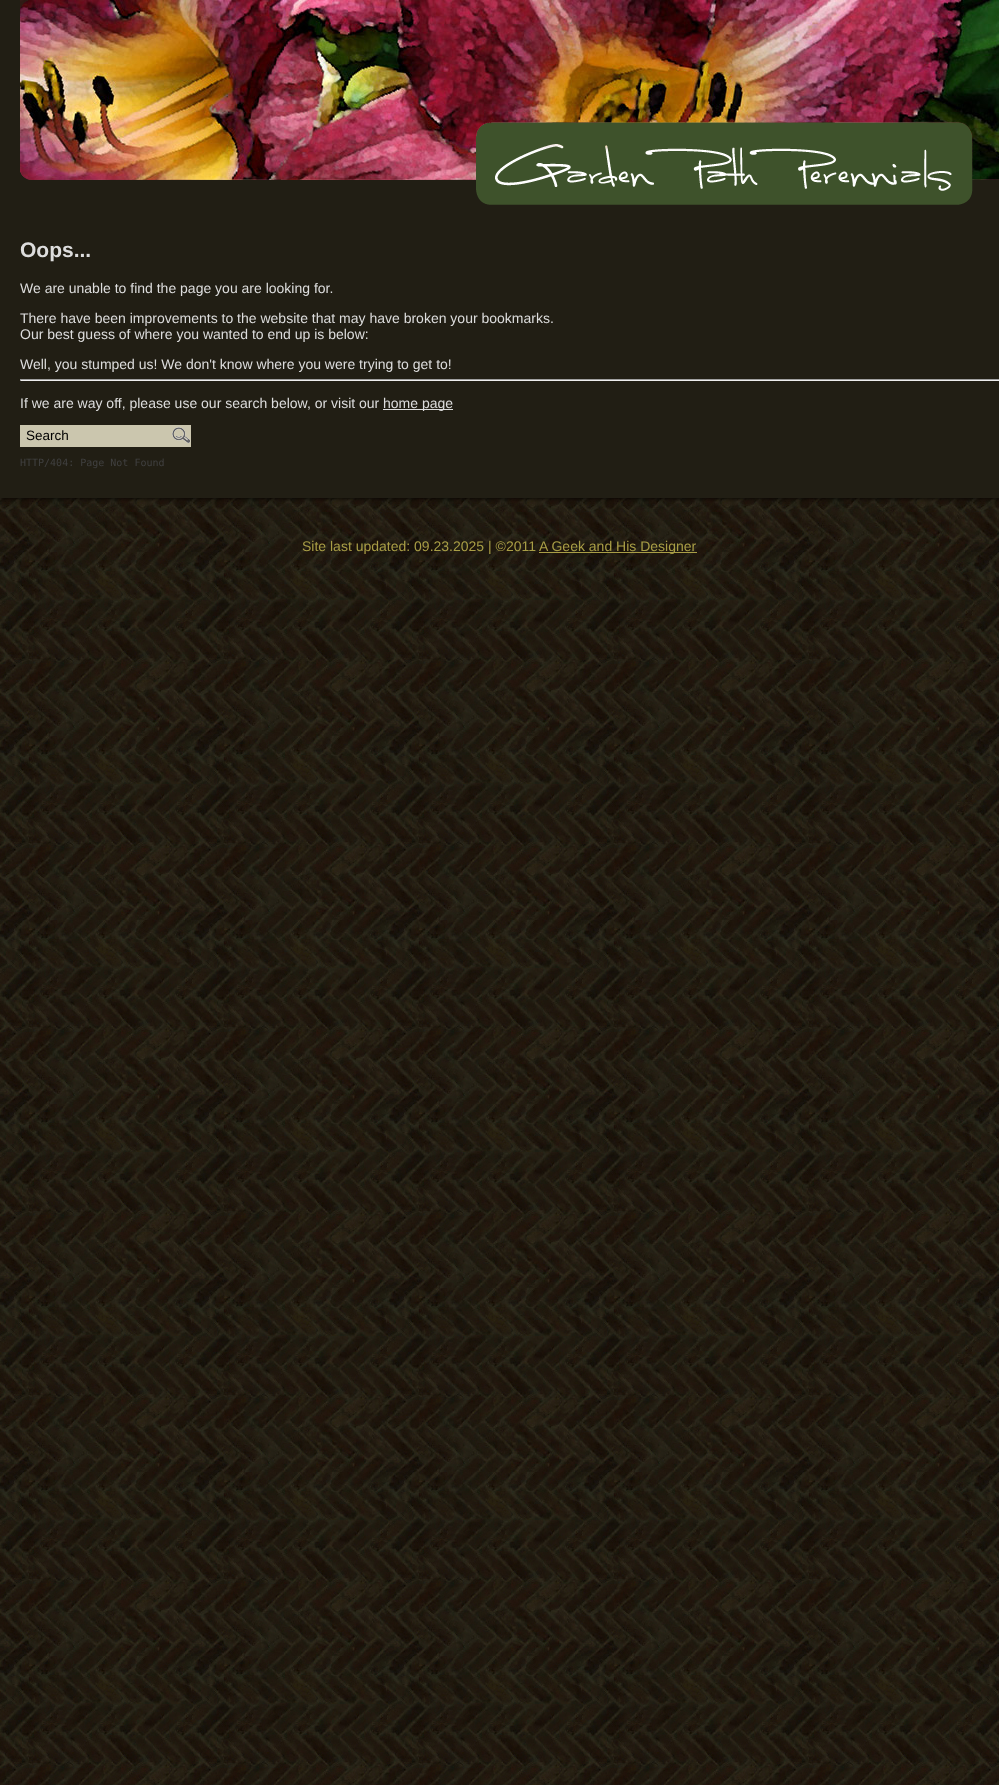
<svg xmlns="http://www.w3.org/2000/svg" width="999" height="1785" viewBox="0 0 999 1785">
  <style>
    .t1 { font: bold 21px Liberation Sans; fill: #ddd; }
    .t2 { font: 14px Liberation Sans; fill: #ddd; }
    .t3 { font: 13.5px Liberation Sans; fill: #000; }
    .t4 { font: 10px DejaVu Sans Mono; fill: #404040; }
    .t5 { font: 14px Liberation Sans; fill: #a99e46; }
  </style>
  <rect width="100%" height="100%" fill="#fff"/>
  <image x="0" y="498" width="999" height="1287" href="images/1.png"/>
  <rect x="0" y="0" width="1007" height="498" fill="#000" filter="blur(2.5px)"/>
  <rect x="0" y="0" width="999" height="498" fill="#211e14"/>
  <image x="20" y="0" width="979" height="205" href="images/2.png"/>
  <text x="20" y="257" class="t1">Oops...</text>
  <text x="20" y="293" class="t2">We are unable to find the page you are looking for.</text>
  <text x="20" y="323" class="t2">There have been improvements to the website that may have broken your bookmarks.</text>
  <text x="20" y="339" class="t2">Our best guess of where you wanted to end up is below:</text>
  <text x="20" y="369" class="t2">Well, you stumped us! We don't know where you were trying to get to!</text>
  <rect x="20" y="379" width="979" height="1" fill="#9f9f9f"/>
  <rect x="20" y="380" width="979" height="1" fill="#eee"/>
  <rect x="20" y="379" width="1" height="2" fill="#9f9f9f"/>
  <text x="20" y="408" class="t2">If we are way off, please use our search below, or visit our</text>
  <rect x="383" y="409" width="70" height="1" fill="#ddd"/>
  <text x="383" y="408" class="t2">home page</text>
  <rect x="20" y="425" width="171" height="22" fill="#cbc6ae"/>
  <text x="26" y="440" class="t3">Search</text>
  <image x="172" y="427" width="19" height="16" href="images/3.png"/>
  <text x="20" y="466" class="t4">HTTP/404: Page Not Found</text>
  <text x="302" y="551" class="t5">Site last updated: 09.23.2025 | ©2011</text>
  <rect x="539" y="552" width="158" height="1" fill="#a99e46"/>
  <text x="539" y="551" class="t5">A Geek and His Designer</text>
</svg>
